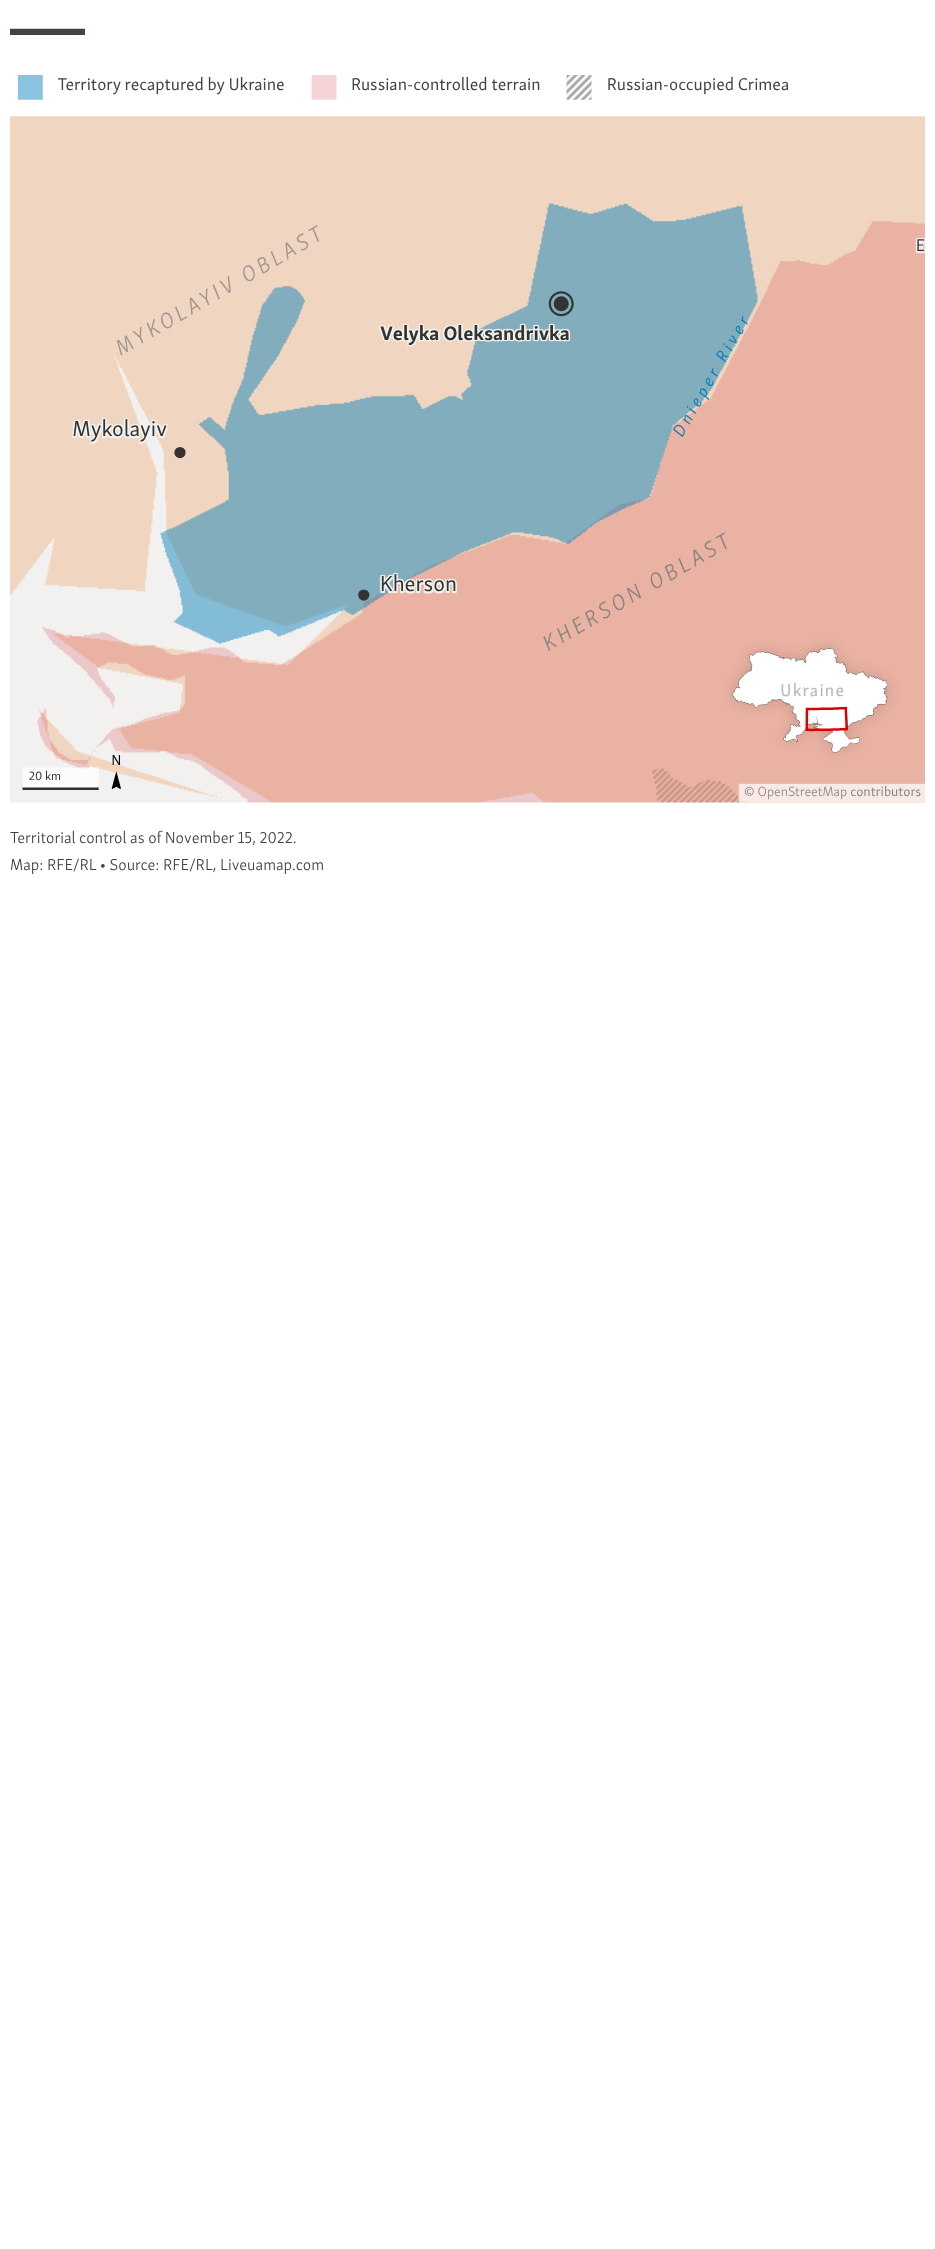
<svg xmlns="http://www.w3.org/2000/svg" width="935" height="2249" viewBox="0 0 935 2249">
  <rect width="100%" height="100%" fill="#fff"/>
  <image x="10" y="28" width="915" height="846" href="images/1.png"/>
</svg>
